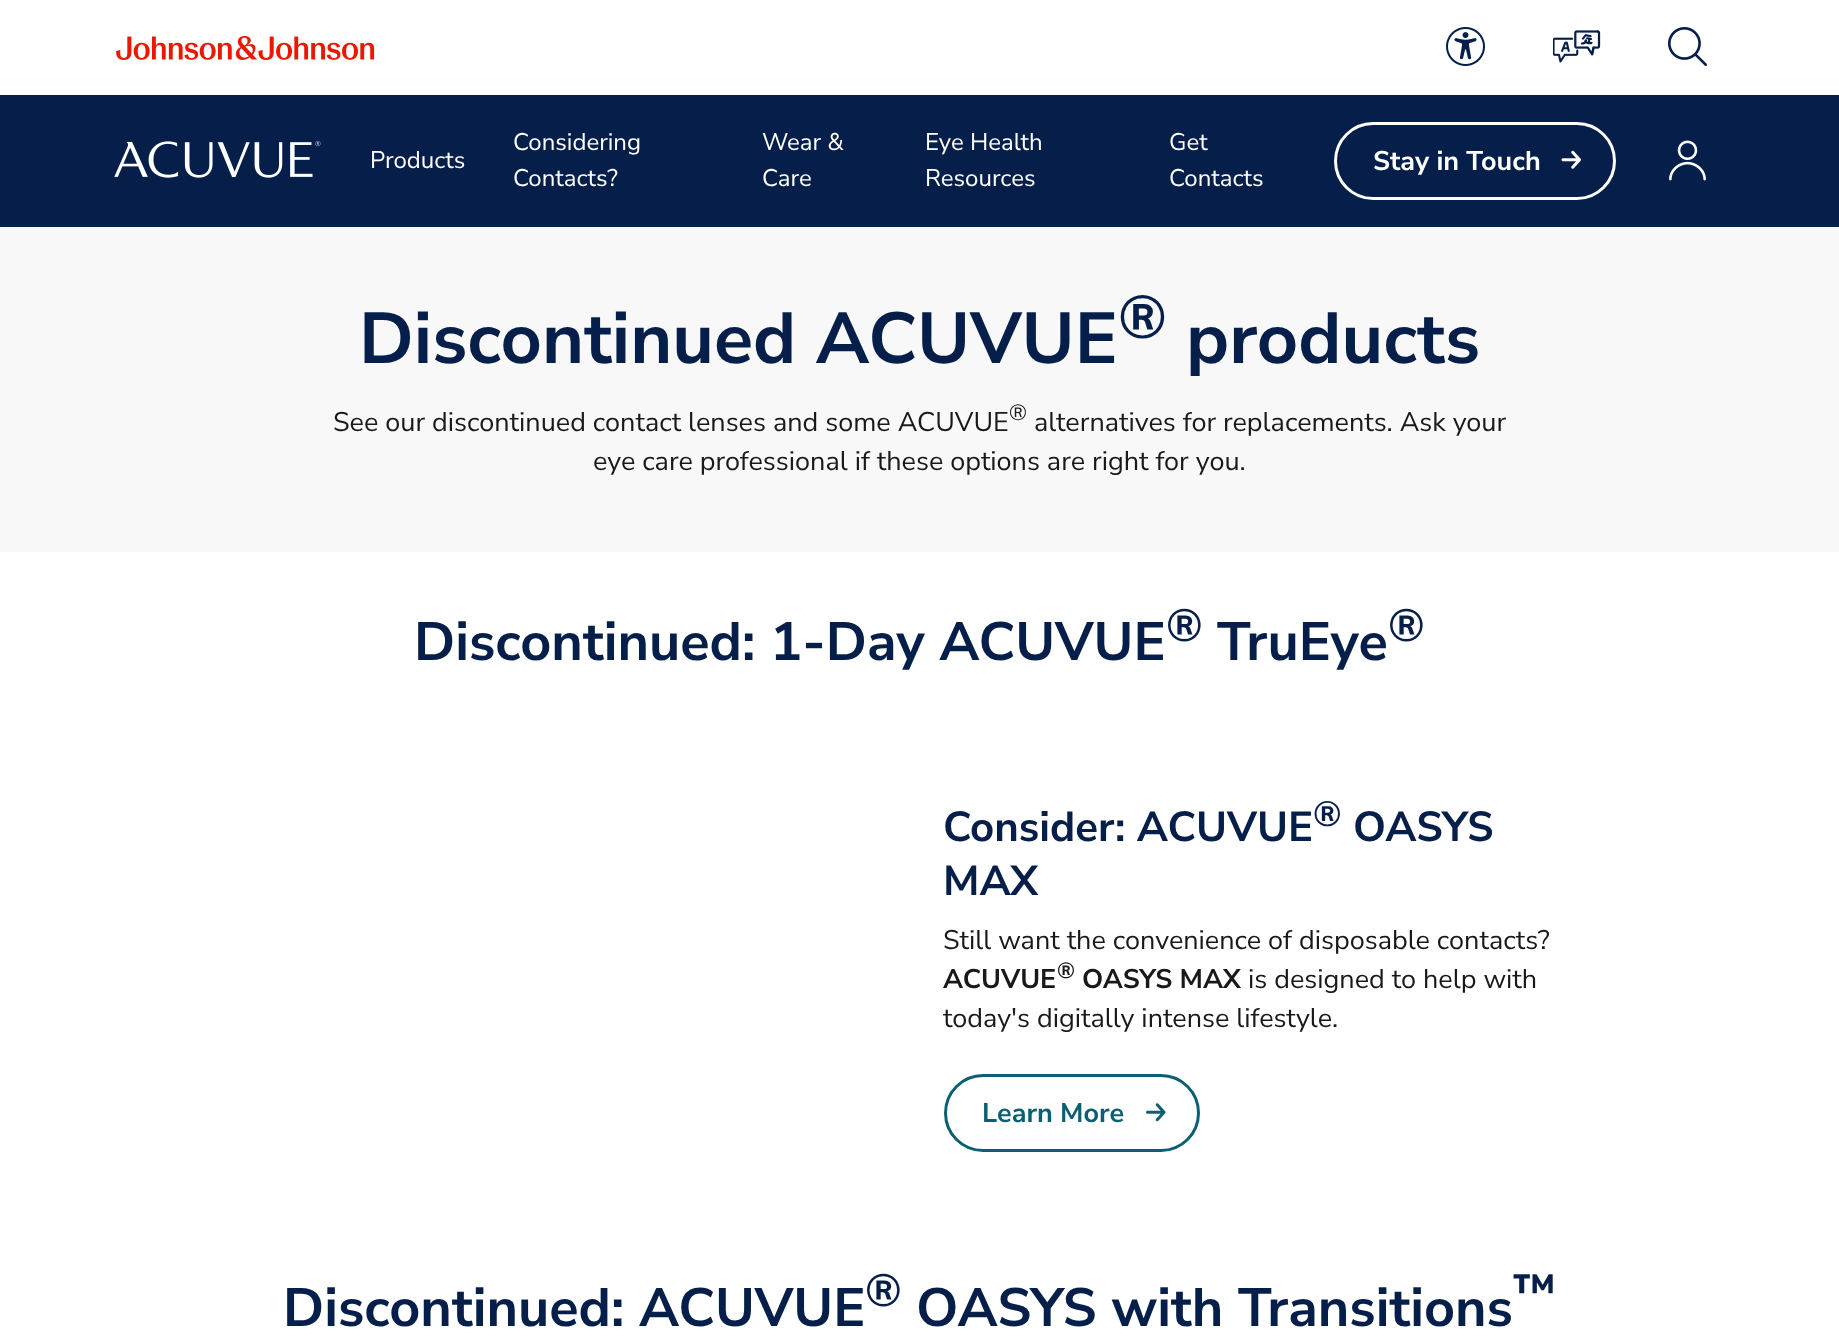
<svg xmlns="http://www.w3.org/2000/svg" width="1839" height="1344" viewBox="0 0 1839 1344">
  <style>
    .t1 { font: 24px Nunito Sans; fill: #fff; }
    .t2 { font: bold 27px Nunito Sans; fill: #fff; }
    .t3 { font: bold 72px Nunito Sans; fill: #051f4a; }
    .t4 { font: bold 60px Nunito Sans; fill: #051f4a; }
    .t5 { font: 27px Nunito Sans; fill: #191919; }
    .t6 { font: 22px Nunito Sans; fill: #191919; }
    .t7 { font: bold 54px Nunito Sans; fill: #051f4a; }
    .t8 { font: bold 45px Nunito Sans; fill: #051f4a; }
    .t9 { font: bold 42px Nunito Sans; fill: #051f4a; }
    .t10 { font: bold 35px Nunito Sans; fill: #051f4a; }
    .t11 { font: bold 27px Nunito Sans; fill: #191919; }
    .t12 { font: bold 22px Nunito Sans; fill: #191919; }
    .t13 { font: bold 27px Nunito Sans; fill: #0a5f72; }
  </style>
  <rect width="100%" height="100%" fill="#fff"/>
  <image x="116" y="36" width="259" height="24" href="images/1.png"/>
  <image x="1446" y="27" width="39" height="39" href="images/2.png"/>
  <image x="1553" y="30" width="48" height="33" href="images/3.png"/>
  <image x="1668" y="27" width="39" height="39" href="images/4.png"/>
  <rect x="0" y="95" width="1839" height="132" fill="#051f4a"/>
  <image x="114" y="141" width="207" height="37" href="images/5.png"/>
  <text x="370" y="168" class="t1">Products</text>
  <text x="513" y="150" class="t1">Considering</text>
  <text x="513" y="186" class="t1">Contacts?</text>
  <text x="762" y="150" class="t1">Wear &amp;</text>
  <text x="762" y="186" class="t1">Care</text>
  <text x="925" y="150" class="t1">Eye Health</text>
  <text x="925" y="186" class="t1">Resources</text>
  <text x="1169" y="150" class="t1">Get</text>
  <text x="1169" y="186" class="t1">Contacts</text>
  <rect x="1335.5" y="123.5" width="279" height="75" rx="37.5" fill="none" stroke="#fff" stroke-width="3"/>
  <text x="1373" y="170" class="t2">Stay in Touch</text>
  <image x="1561" y="150" width="20" height="19" href="images/6.png"/>
  <image x="1669" y="140" width="37" height="41" href="images/7.png"/>
  <rect x="0" y="228" width="1839" height="324" fill="#f8f8f8"/>
  <text x="359" y="363" class="t3">Discontinued ACUVUE</text>
  <text x="1118" y="338" class="t4">®</text>
  <text x="1186" y="363" class="t3">products</text>
  <text x="333" y="431" class="t5">See our discontinued contact lenses and some ACUVUE</text>
  <text x="1009" y="420" class="t6">®</text>
  <text x="1034" y="431" class="t5">alternatives for replacements. Ask your</text>
  <text x="593" y="470" class="t5">eye care professional if these options are right for you.</text>
  <text x="414" y="660" class="t7">Discontinued: 1-Day ACUVUE</text>
  <text x="1166" y="641" class="t8">®</text>
  <text x="1217" y="660" class="t7">TruEye</text>
  <text x="1388" y="641" class="t8">®</text>
  <text x="943" y="841" class="t9">Consider: ACUVUE</text>
  <text x="1313" y="826" class="t10">®</text>
  <text x="1353" y="841" class="t9">OASYS</text>
  <text x="943" y="895" class="t9">MAX</text>
  <text x="943" y="949" class="t5">Still want the convenience of disposable contacts?</text>
  <text x="943" y="988" class="t11">ACUVUE</text>
  <text x="1057" y="978" class="t12">®</text>
  <text x="1082" y="988" class="t11">OASYS MAX</text>
  <text x="1248" y="988" class="t5">is designed to help with</text>
  <text x="943" y="1027" class="t5">today's digitally intense lifestyle.</text>
  <rect x="945.5" y="1075.5" width="253" height="75" rx="37.5" fill="none" stroke="#0a5f72" stroke-width="3"/>
  <text x="982" y="1122" class="t13">Learn More</text>
  <image x="1146" y="1103" width="20" height="19" href="images/8.png"/>
  <text x="865" y="1306" class="t8">®</text>
  <text x="1513" y="1306" class="t8">™</text>
  <text x="283" y="1326" class="t7">Discontinued: ACUVUE</text>
  <text x="916" y="1326" class="t7">OASYS with Transitions</text>
</svg>
